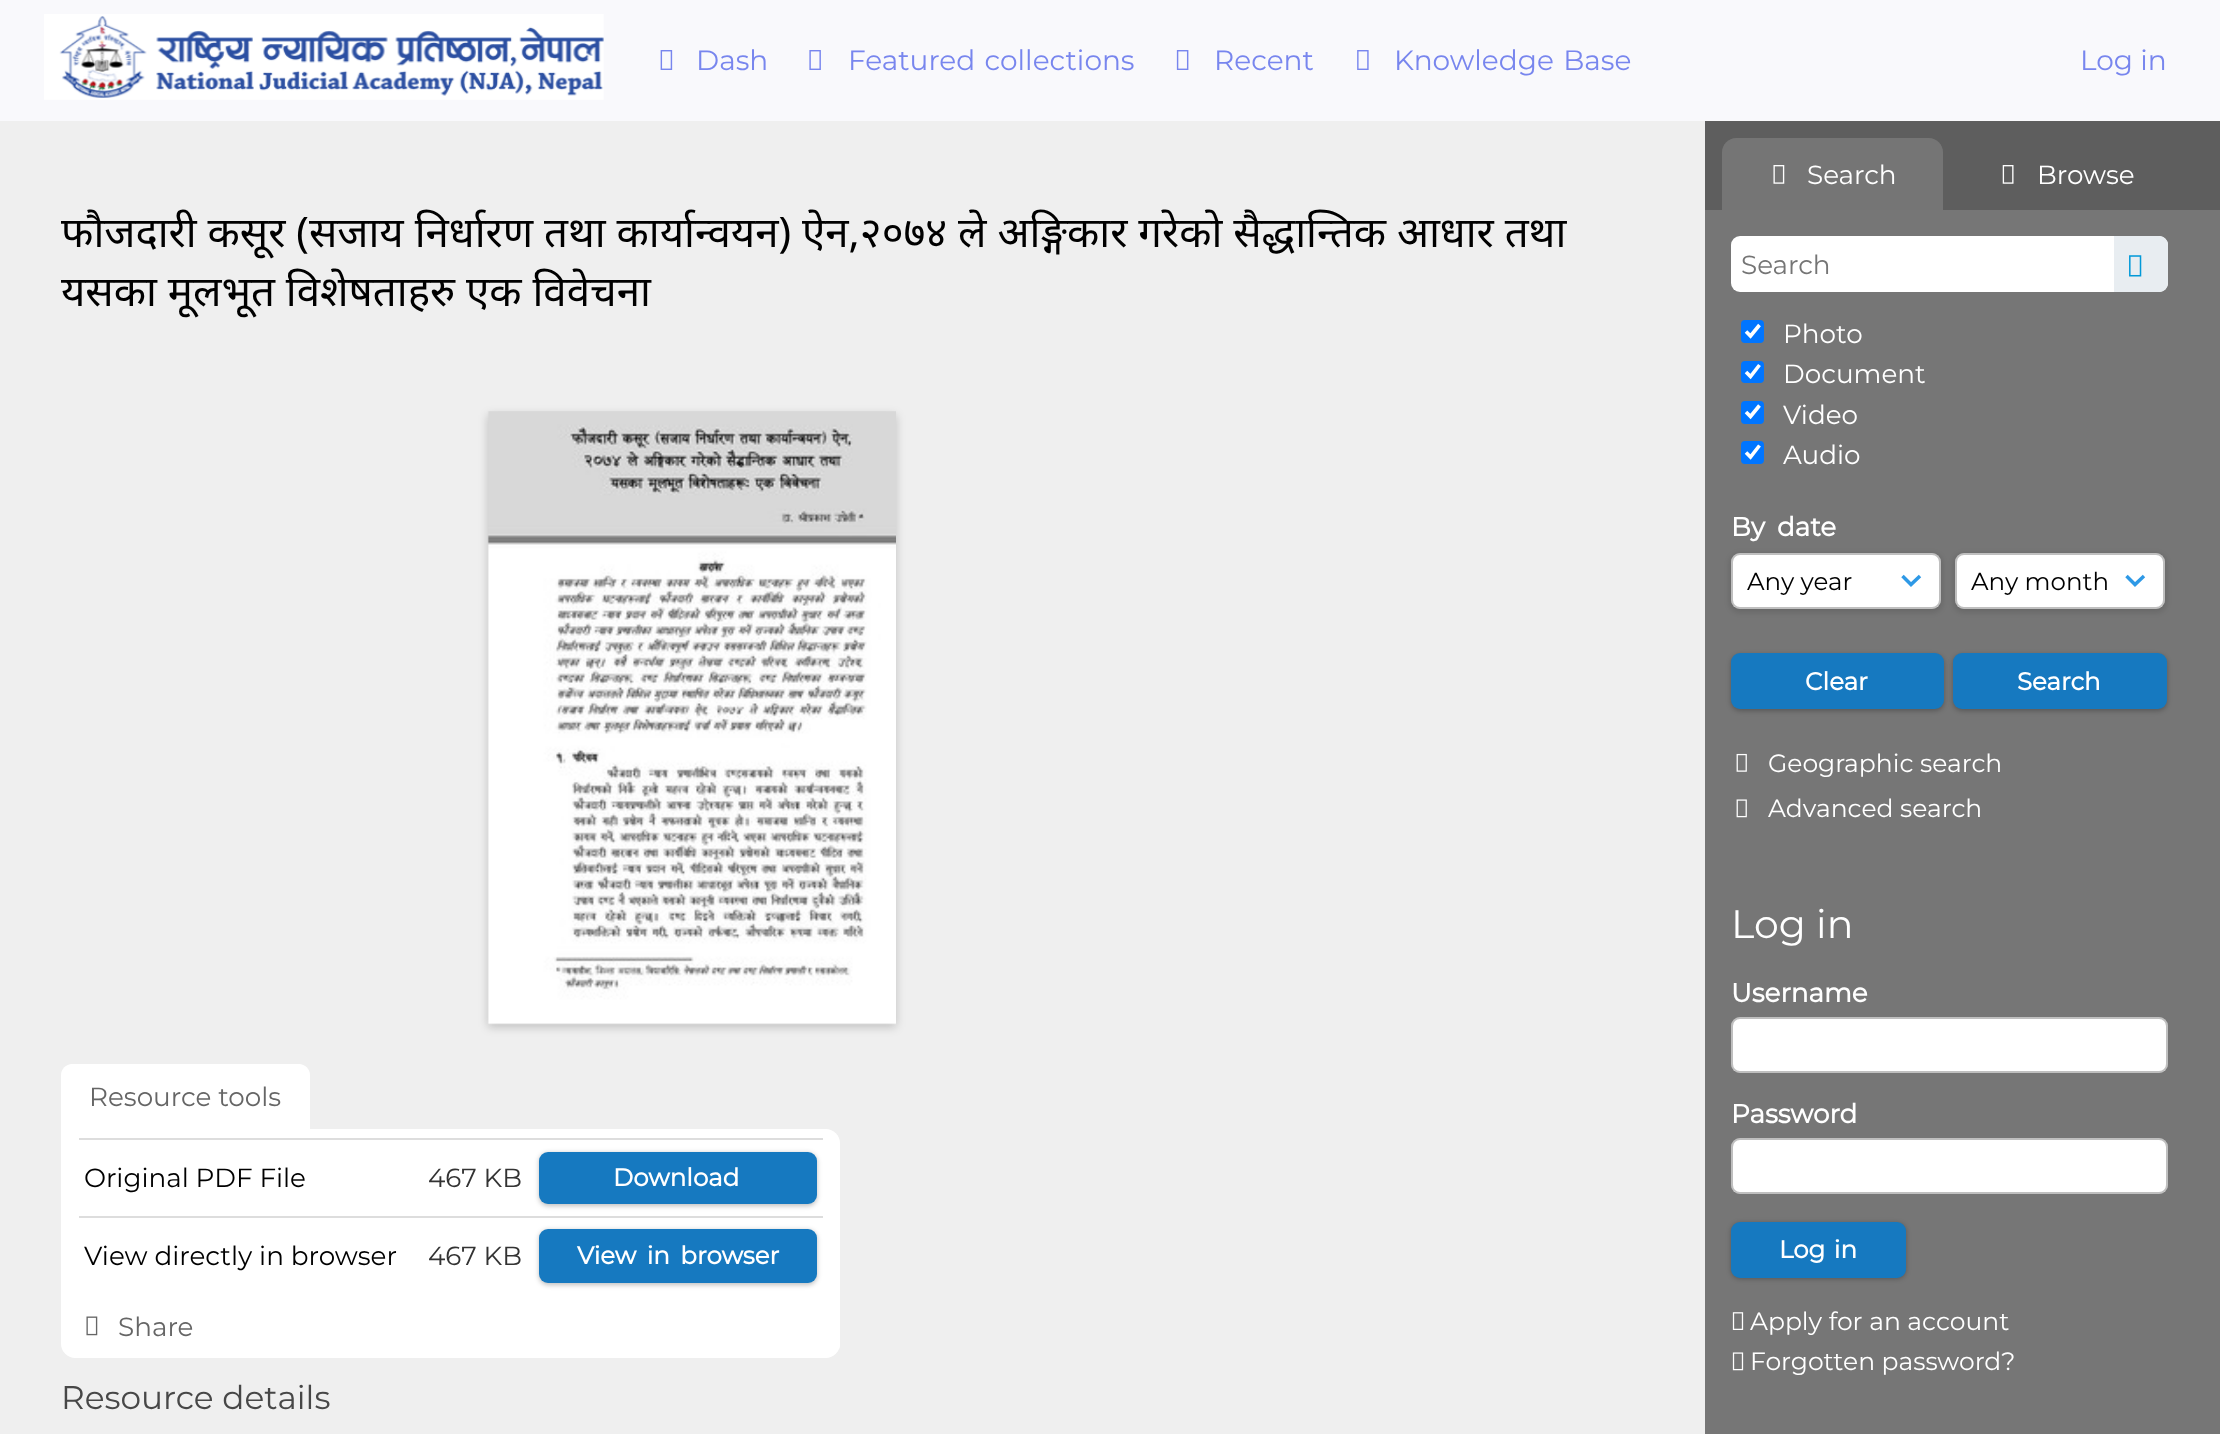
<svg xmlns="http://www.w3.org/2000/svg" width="2220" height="1434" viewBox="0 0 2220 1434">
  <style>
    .t1 { font: 28px Montserrat; fill: #7886ee; }
    .t2 { font: 42px Noto Sans; fill: #000; }
    .t3 { font: 26.25px Montserrat; fill: #666; }
    .t4 { font: 26.25px Montserrat; fill: #000; }
    .t5 { font: 26.25px Montserrat; fill: #333; }
    .t6 { font: bold 24.5px Montserrat; fill: #fff; }
    .t7 { font: 32.75px Montserrat; fill: #474747; }
    .t8 { font: 26.25px Montserrat; fill: #fff; }
    .t9 { font: 26.25px Montserrat; fill: #757575; }
    .t10 { font: bold 26.25px Montserrat; fill: #fff; }
    .t11 { font: 24.5px Montserrat; fill: #000; }
    .t12 { font: 25px Montserrat; fill: #fff; }
    .t13 { font: 39.5px Montserrat; fill: #fff; }
  </style>
  <defs>
    <clipPath id="clip1"><rect x="61" y="1050" width="779" height="308" rx="14"/></clipPath>
  </defs>
  <rect width="100%" height="100%" fill="#efefef"/>
  <rect x="0" y="0" width="2220" height="121" fill="#f9f9fc"/>
  <image x="44" y="14" width="560" height="86" href="images/1.png"/>
  <image x="660" y="50" width="13" height="20" href="images/2.png"/>
  <text x="696" y="70" class="t1">Dash</text>
  <image x="809" y="50" width="12" height="20" href="images/3.png"/>
  <text x="848" y="70" word-spacing="2" class="t1">Featured collections</text>
  <image x="1176" y="50" width="13" height="20" href="images/4.png"/>
  <text x="1214" y="70" class="t1">Recent</text>
  <image x="1357" y="50" width="12" height="20" href="images/5.png"/>
  <text x="1394" y="70" word-spacing="2" class="t1">Knowledge Base</text>
  <text x="2080" y="70" class="t1">Log in</text>
  <text x="61" y="247" class="t2">फौजदारी कसूर (सजाय निर्धारण तथा कार्यान्वयन) ऐन,२०७४ ले अङ्गिकार गरेको सैद्धान्तिक आधार तथा</text>
  <text x="61" y="306" class="t2">यसका मूलभूत विशेषताहरु एक विवेचना</text>
  <rect x="488" y="415" width="408" height="612" fill="#00000033" filter="blur(5px)"/>
  <image x="487" y="411" width="409" height="614" href="images/6.png"/>
  <path d="M72 1064H299C305 1064 310 1069 310 1075V1131H61V1075C61 1069 66 1064 72 1064Z" fill="#fff"/>
  <text x="89" y="1106" class="t3">Resource tools</text>
  <path d="M61 1129H826C833.5 1129 840 1135.5 840 1143V1344C840 1351.5 833.5 1358 826 1358H75C67.5 1358 61 1351.5 61 1344Z" fill="#fff"/>
  <rect x="79" y="1138" width="744" height="2" fill="#ddd"/>
  <text x="84" y="1187" class="t4">Original PDF File</text>
  <text x="428" y="1187" class="t5">467 KB</text>
  <rect x="539" y="1153" width="278" height="53" rx="9" fill="#00000040" filter="blur(2.5px)"/>
  <rect x="539" y="1152" width="278" height="52" rx="9" fill="#1679c0"/>
  <text x="613" y="1186" class="t6">Download</text>
  <rect x="79" y="1216" width="744" height="2" fill="#ddd"/>
  <text x="84" y="1265" class="t4">View directly in browser</text>
  <text x="428" y="1265" class="t5">467 KB</text>
  <rect x="539" y="1230" width="278" height="55" rx="9" fill="#00000040" filter="blur(2.5px)"/>
  <rect x="539" y="1229" width="278" height="54" rx="9" fill="#1679c0"/>
  <text x="577" y="1264" word-spacing="4" class="t6">View in browser</text>
  <g clip-path="url(#clip1)">
    <path d="M93 1293H840V1349H93C85.5 1349 79 1342.5 79 1335V1307C79 1299.5 85.5 1293 93 1293Z" fill="#fff"/>
  </g>
  <image x="86" y="1316" width="12" height="20" href="images/7.png"/>
  <text x="118" y="1336" class="t3">Share</text>
  <text x="61" y="1409" class="t7">Resource details</text>
  <rect x="1705" y="210" width="515" height="1224" fill="#767676"/>
  <rect x="1705" y="121" width="515" height="89" fill="#5e5e5e"/>
  <path d="M1736 138H1929C1936.5 138 1943 144.5 1943 152V210H1722V152C1722 144.5 1728.5 138 1736 138Z" fill="#757575"/>
  <image x="1773" y="165" width="12" height="19" href="images/8.png"/>
  <text x="1807" y="184" class="t8">Search</text>
  <image x="2002" y="165" width="12" height="19" href="images/9.png"/>
  <text x="2037" y="184" class="t8">Browse</text>
  <rect x="1731" y="236" width="437" height="56" rx="9" fill="#fff"/>
  <text x="1741" y="274" class="t9">Search</text>
  <path d="M2114 236H2159C2164 236 2168 240 2168 245V283C2168 288 2164 292 2159 292H2114Z" fill="#e8edf1"/>
  <image x="2129" y="255" width="13" height="22" href="images/10.png"/>
  <rect x="1741" y="320" width="23" height="23" rx="4" fill="#0075ff"/>
  <path d="M1746 331.5L1750.5 336L1759.5 325" fill="none" stroke="#fff" stroke-width="3.6"/>
  <text x="1783" y="343" class="t8">Photo</text>
  <rect x="1741" y="361" width="23" height="22" rx="4" fill="#0075ff"/>
  <path d="M1746 372L1750.5 376.5L1759.5 365" fill="none" stroke="#fff" stroke-width="3.6"/>
  <text x="1783" y="383" class="t8">Document</text>
  <rect x="1741" y="401" width="23" height="23" rx="4" fill="#0075ff"/>
  <path d="M1746 412L1750.5 416.5L1759.5 405.5" fill="none" stroke="#fff" stroke-width="3.6"/>
  <text x="1783" y="424" class="t8">Video</text>
  <rect x="1741" y="441" width="23" height="23" rx="4" fill="#0075ff"/>
  <path d="M1746 452.5L1750.5 457L1759.5 445.5" fill="none" stroke="#fff" stroke-width="3.6"/>
  <text x="1783" y="464" class="t8">Audio</text>
  <text x="1731" y="536" word-spacing="5" class="t10">By date</text>
  <rect x="1729" y="553" width="214" height="60" rx="11" fill="#0000001a" filter="blur(2.5px)"/>
  <rect x="1731" y="553" width="210" height="56" rx="9" fill="#fff"/>
  <path d="M1920 576L1911 584.5L1902.5 576" fill="none" stroke="#2e99e6" stroke-width="3.5"/>
  <rect x="1732" y="554" width="208" height="54" rx="8" fill="none" stroke="#00000040" stroke-width="2"/>
  <text x="1747" y="590" class="t11">Any year</text>
  <rect x="1953" y="553" width="214" height="60" rx="11" fill="#0000001a" filter="blur(2.5px)"/>
  <rect x="1955" y="553" width="210" height="56" rx="9" fill="#fff"/>
  <path d="M2144 576L2135 584.5L2126.5 576" fill="none" stroke="#2e99e6" stroke-width="3.5"/>
  <rect x="1956" y="554" width="208" height="54" rx="8" fill="none" stroke="#00000040" stroke-width="2"/>
  <text x="1971" y="590" class="t11">Any month</text>
  <rect x="1731" y="655" width="213" height="56" rx="9" fill="#00000040" filter="blur(2.5px)"/>
  <rect x="1731" y="653" width="213" height="56" rx="9" fill="#1679c0"/>
  <text x="1805" y="690" class="t6">Clear</text>
  <rect x="1953" y="655" width="214" height="56" rx="9" fill="#00000040" filter="blur(2.5px)"/>
  <rect x="1953" y="653" width="214" height="56" rx="9" fill="#1679c0"/>
  <text x="2017" y="690" class="t6">Search</text>
  <image x="1736" y="753" width="11" height="19" href="images/11.png"/>
  <text x="1768" y="772" class="t12">Geographic search</text>
  <image x="1736" y="799" width="11" height="19" href="images/12.png"/>
  <text x="1768" y="817" class="t12">Advanced search</text>
  <text x="1731" y="938" class="t13">Log in</text>
  <text x="1731" y="1002" class="t10">Username</text>
  <rect x="1731" y="1017" width="437" height="56" rx="9" fill="#fff"/>
  <rect x="1732" y="1018" width="435" height="54" rx="8" fill="none" stroke="#00000040" stroke-width="2"/>
  <text x="1731" y="1123" class="t10">Password</text>
  <rect x="1731" y="1138" width="437" height="56" rx="9" fill="#fff"/>
  <rect x="1732" y="1139" width="435" height="54" rx="8" fill="none" stroke="#00000040" stroke-width="2"/>
  <rect x="1731" y="1223" width="175" height="56" rx="9" fill="#00000040" filter="blur(2.5px)"/>
  <rect x="1731" y="1222" width="175" height="56" rx="9" fill="#1679c0"/>
  <text x="1779" y="1258" word-spacing="2" class="t6">Log in</text>
  <image x="1732" y="1312" width="12" height="18" href="images/13.png"/>
  <text x="1750" y="1330" class="t12">Apply for an account</text>
  <image x="1732" y="1352" width="12" height="19" href="images/14.png"/>
  <text x="1750" y="1370" class="t12">Forgotten password?</text>
</svg>
